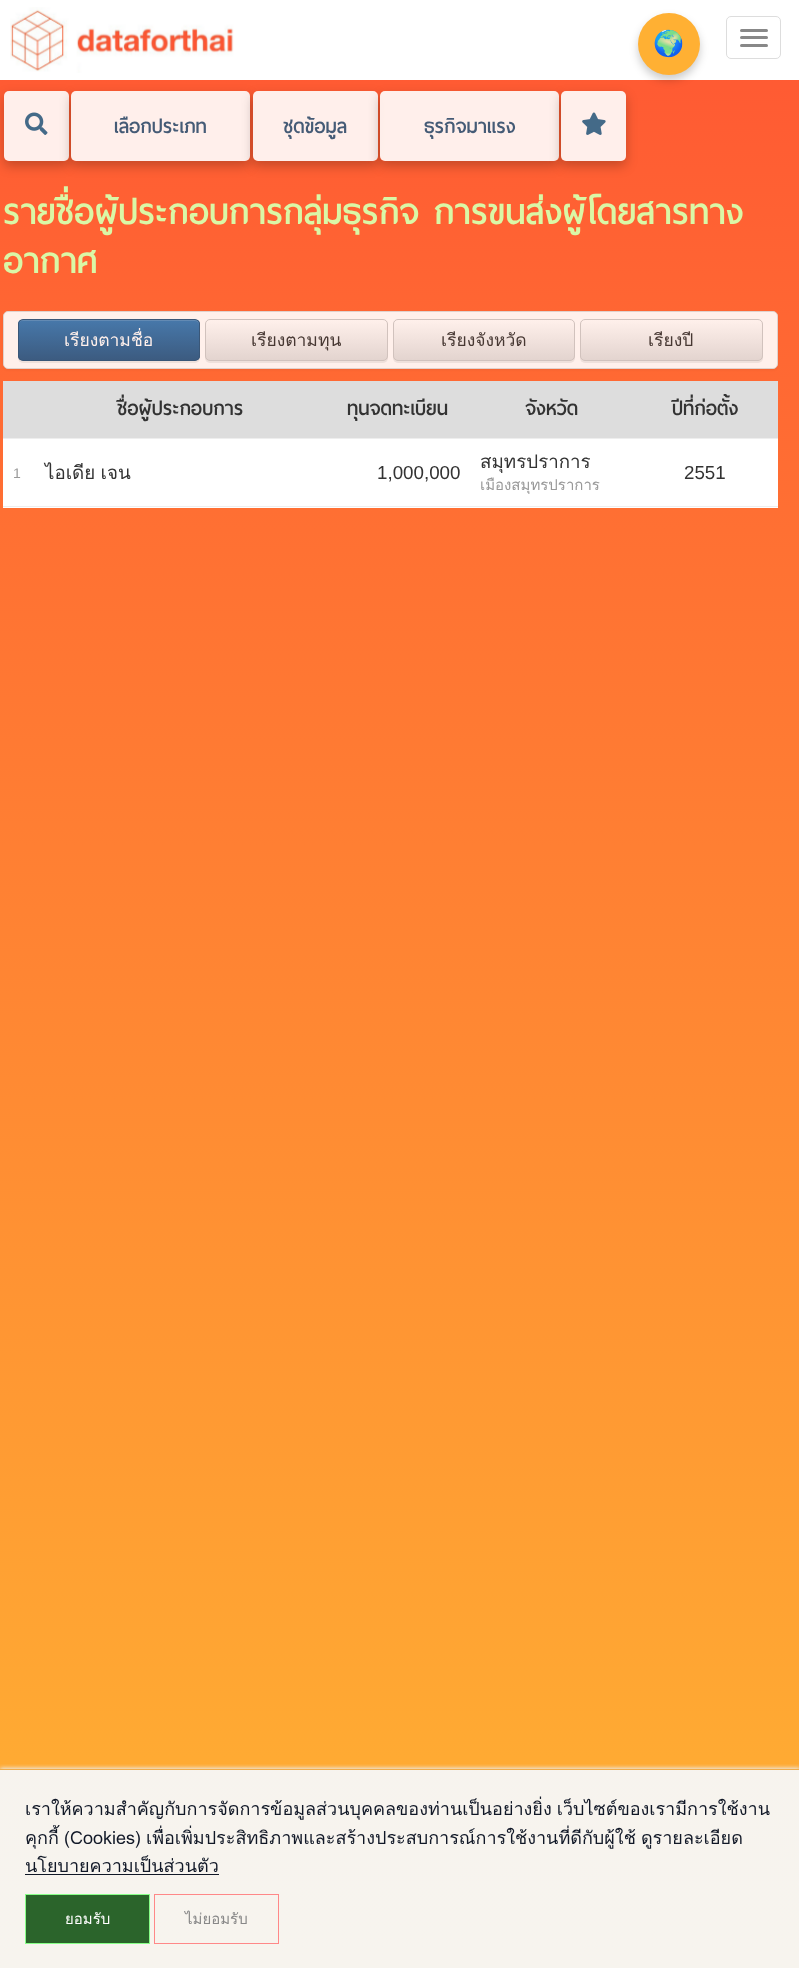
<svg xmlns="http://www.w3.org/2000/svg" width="799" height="1968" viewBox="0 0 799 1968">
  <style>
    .t1 { font: 25px Noto Color Emoji; fill: #fff; }
    .t2 { font: bold 25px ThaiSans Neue; fill: #455b76; }
    .t3 { font: bold 45px ThaiSans Neue; fill: #daf7a6; }
    .t4 { font: 17.5px Loma; fill: #fff0eb; }
    .t5 { font: 17.5px Loma; fill: #473833; }
    .t6 { font: bold 25px ThaiSans Neue; fill: #333; }
    .t7 { font: 14px Liberation Sans; fill: #999; }
    .t8 { font: 18.75px Loma; fill: #333; }
    .t9 { font: 18.75px Liberation Sans; fill: #333; }
    .t10 { font: 15px Loma; fill: #999; }
    .t11 { font: 18px Loma; fill: #111827; }
    .t12 { font: 15px Loma; fill: #fff; }
    .t13 { font: 15px Loma; fill: #888; }
  </style>
  <defs>
    <linearGradient id="g1" gradientUnits="userSpaceOnUse" x1="400" y1="0" x2="400" y2="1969"><stop offset="0" stop-color="#ff5733"/><stop offset="1" stop-color="#ffb433"/></linearGradient>
    <linearGradient id="g2" gradientUnits="userSpaceOnUse" x1="400" y1="0" x2="400" y2="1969"><stop offset="0" stop-color="#f7f0ee"/><stop offset="1" stop-color="#f7f4ee"/></linearGradient>
    <clipPath id="clip1"><path d="M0 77H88V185H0ZM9 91H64C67 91 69 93 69 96V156C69 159 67 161 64 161H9C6 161 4 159 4 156V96C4 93 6 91 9 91Z" clip-rule="evenodd"/></clipPath>
    <clipPath id="clip2"><path d="M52 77H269V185H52ZM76 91H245C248 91 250 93 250 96V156C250 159 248 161 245 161H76C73 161 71 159 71 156V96C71 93 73 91 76 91Z" clip-rule="evenodd"/></clipPath>
    <clipPath id="clip3"><path d="M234 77H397V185H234ZM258 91H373C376 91 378 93 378 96V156C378 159 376 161 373 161H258C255 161 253 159 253 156V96C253 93 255 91 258 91Z" clip-rule="evenodd"/></clipPath>
    <clipPath id="clip4"><path d="M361 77H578V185H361ZM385 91H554C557 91 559 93 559 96V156C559 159 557 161 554 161H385C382 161 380 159 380 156V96C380 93 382 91 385 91Z" clip-rule="evenodd"/></clipPath>
    <clipPath id="clip5"><path d="M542 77H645V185H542ZM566 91H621C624 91 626 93 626 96V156C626 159 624 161 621 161H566C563 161 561 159 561 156V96C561 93 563 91 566 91Z" clip-rule="evenodd"/></clipPath>
    <clipPath id="clip6"><rect x="18" y="319" width="182" height="42" rx="5"/></clipPath>
    <linearGradient id="g3" gradientUnits="userSpaceOnUse" x1="109" y1="320" x2="109" y2="360"><stop offset="0" stop-color="#4778aa"/><stop offset="1" stop-color="#3c5b80"/></linearGradient>
    <clipPath id="clip7"><rect x="205" y="319" width="183" height="42" rx="5"/></clipPath>
    <linearGradient id="g4" gradientUnits="userSpaceOnUse" x1="296" y1="320" x2="296" y2="360"><stop offset="0" stop-color="#fff0eb"/><stop offset="1" stop-color="#e3d4cf"/></linearGradient>
    <clipPath id="clip8"><rect x="393" y="319" width="182" height="42" rx="5"/></clipPath>
    <linearGradient id="g5" gradientUnits="userSpaceOnUse" x1="484" y1="320" x2="484" y2="360"><stop offset="0" stop-color="#fff0eb"/><stop offset="1" stop-color="#e3d4cf"/></linearGradient>
    <clipPath id="clip9"><rect x="580" y="319" width="183" height="42" rx="5"/></clipPath>
    <linearGradient id="g6" gradientUnits="userSpaceOnUse" x1="671" y1="320" x2="671" y2="360"><stop offset="0" stop-color="#fff0eb"/><stop offset="1" stop-color="#e3d4cf"/></linearGradient>
    <clipPath id="clip10"><rect x="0" y="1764" width="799" height="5"/></clipPath>
  </defs>
  <rect width="100%" height="100%" fill="#fff"/>
  <rect x="0" y="80" width="799" height="1689" fill="url(#g1)"/>
  <rect x="0" y="1770" width="799" height="198" fill="url(#g2)"/>
  <image x="10" y="7" width="224" height="66" href="images/1.png"/>
  <rect x="726.5" y="16.5" width="54" height="42" rx="4.5" fill="none" stroke="#ddd"/>
  <rect x="740" y="29" width="28" height="3" rx="1.5" fill="#888"/>
  <rect x="740" y="36" width="28" height="3" rx="1.5" fill="#888"/>
  <rect x="740" y="44" width="28" height="3" rx="1.5" fill="#888"/>
  <g clip-path="url(#clip1)">
    <rect x="4" y="96" width="65" height="70" rx="5" fill="#0000003b" filter="blur(6px)"/>
  </g>
  <rect x="4" y="91" width="65" height="70" rx="5" fill="#ffffffe6"/>
  <g clip-path="url(#clip2)">
    <rect x="71" y="96" width="179" height="70" rx="5" fill="#0000003b" filter="blur(6px)"/>
  </g>
  <rect x="71" y="91" width="179" height="70" rx="5" fill="#ffffffe6"/>
  <g clip-path="url(#clip3)">
    <rect x="253" y="96" width="125" height="70" rx="5" fill="#0000003b" filter="blur(6px)"/>
  </g>
  <rect x="253" y="91" width="125" height="70" rx="5" fill="#ffffffe6"/>
  <g clip-path="url(#clip4)">
    <rect x="380" y="96" width="179" height="70" rx="5" fill="#0000003b" filter="blur(6px)"/>
  </g>
  <rect x="380" y="91" width="179" height="70" rx="5" fill="#ffffffe6"/>
  <g clip-path="url(#clip5)">
    <rect x="561" y="96" width="65" height="70" rx="5" fill="#0000003b" filter="blur(6px)"/>
  </g>
  <rect x="561" y="91" width="65" height="70" rx="5" fill="#ffffffe6"/>
  <rect x="638" y="18" width="62" height="62" rx="31" fill="#00000033" filter="blur(4px)"/>
  <circle cx="669" cy="44" r="31" fill="#ffb033"/>
  <text x="653" y="52" class="t1">🌍</text>
  <image x="25" y="112" width="23" height="23" href="images/2.png"/>
  <text x="114" y="133" class="t2">เลือกประเภท</text>
  <text x="283" y="133" class="t2">ชุดข้อมูล</text>
  <text x="424" y="133" class="t2">ธุรกิจมาแรง</text>
  <image x="582" y="112" width="24" height="23" href="images/3.png"/>
  <text x="3" y="224" class="t3">รายชื่อผู้ประกอบการกลุ่มธุรกิจ การขนส่งผู้โดยสารทาง</text>
  <text x="3" y="273" class="t3">อากาศ</text>
  <rect x="3" y="313" width="775" height="57" rx="5" fill="#0000000d" filter="blur(1px)"/>
  <rect x="3.5" y="311.5" width="774" height="57" rx="4.5" fill="#fff0eb" stroke="#e0d1cc"/>
  <rect x="18" y="320" width="182" height="43" rx="5" fill="#1a0a0512" filter="blur(0.5px)"/>
  <g clip-path="url(#clip6)">
    <rect x="18" y="320" width="182" height="40" fill="url(#g3)"/>
  </g>
  <path d="M22 321H195C197 321 199 323 199 325V324C199 322 197 320 195 320H23C21 320 19 322 19 324V325C19 323 20 321 22 321Z" fill="#638ab3"/>
  <rect x="18.5" y="319.5" width="181" height="41" rx="4.5" fill="none" stroke="#3a5778"/>
  <text x="64" y="346" class="t4">เรียงตามชื่อ</text>
  <rect x="205" y="320" width="183" height="43" rx="5" fill="#1a0a0512" filter="blur(0.5px)"/>
  <g clip-path="url(#clip7)">
    <rect x="205" y="320" width="183" height="40" fill="url(#g4)"/>
  </g>
  <rect x="205.5" y="319.5" width="182" height="41" rx="4.5" fill="none" stroke="#d1c2bd"/>
  <text x="251" y="346" class="t5">เรียงตามทุน</text>
  <rect x="393" y="320" width="182" height="43" rx="5" fill="#1a0a0512" filter="blur(0.5px)"/>
  <g clip-path="url(#clip8)">
    <rect x="393" y="320" width="182" height="40" fill="url(#g5)"/>
  </g>
  <rect x="393.5" y="319.5" width="181" height="41" rx="4.5" fill="none" stroke="#d1c2bd"/>
  <text x="441" y="346" class="t5">เรียงจังหวัด</text>
  <rect x="580" y="320" width="183" height="43" rx="5" fill="#1a0a0512" filter="blur(0.5px)"/>
  <g clip-path="url(#clip9)">
    <rect x="580" y="320" width="183" height="40" fill="url(#g6)"/>
  </g>
  <rect x="580.5" y="319.5" width="182" height="41" rx="4.5" fill="none" stroke="#d1c2bd"/>
  <text x="648" y="346" class="t5">เรียงปี</text>
  <rect x="3" y="438" width="775" height="1" fill="#eee"/>
  <rect x="3" y="381" width="775" height="57" fill="#ddd"/>
  <text x="117" y="415" class="t6">ชื่อผู้ประกอบการ</text>
  <text x="347" y="415" class="t6">ทุนจดทะเบียน</text>
  <text x="525" y="415" class="t6">จังหวัด</text>
  <text x="672" y="415" class="t6">ปีที่ก่อตั้ง</text>
  <rect x="3" y="439" width="775" height="69" fill="#fff"/>
  <rect x="3" y="506" width="775" height="1" fill="#eee"/>
  <text x="13" y="478" class="t7">1</text>
  <text x="45" y="479" word-spacing="-1" class="t8">ไอเดีย เจน</text>
  <text x="377" y="479" class="t9">1,000,000</text>
  <text x="480" y="468" class="t8">สมุทรปราการ</text>
  <text x="480" y="490" class="t10">เมืองสมุทรปราการ</text>
  <text x="684" y="479" class="t9">2551</text>
  <g clip-path="url(#clip10)">
    <rect x="0" y="1768" width="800" height="200" fill="#eaf0f6" filter="blur(2px)"/>
  </g>
  <rect x="0" y="1769" width="799" height="1" fill="#f0ad4e"/>
  <text x="25" y="1815" word-spacing="-1" class="t11">เราให้ความสำคัญกับการจัดการข้อมูลส่วนบุคคลของท่านเป็นอย่างยิ่ง เว็บไซต์ของเรามีการใช้งาน</text>
  <text x="25" y="1844" word-spacing="-1" class="t11">คุกกี้ (Cookies) เพื่อเพิ่มประสิทธิภาพและสร้างประสบการณ์การใช้งานที่ดีกับผู้ใช้ ดูรายละเอียด</text>
  <text x="25" y="1872" class="t11">นโยบายความเป็นส่วนตัว</text>
  <rect x="25" y="1874" width="194" height="1" fill="#111827"/>
  <rect x="25.5" y="1894.5" width="124" height="49" fill="#2b642b" stroke="#8f8"/>
  <text x="65" y="1924" class="t12">ยอมรับ</text>
  <rect x="154.5" y="1894.5" width="124" height="49" fill="none" stroke="#f88"/>
  <text x="185" y="1924" class="t13">ไม่ยอมรับ</text>
</svg>
